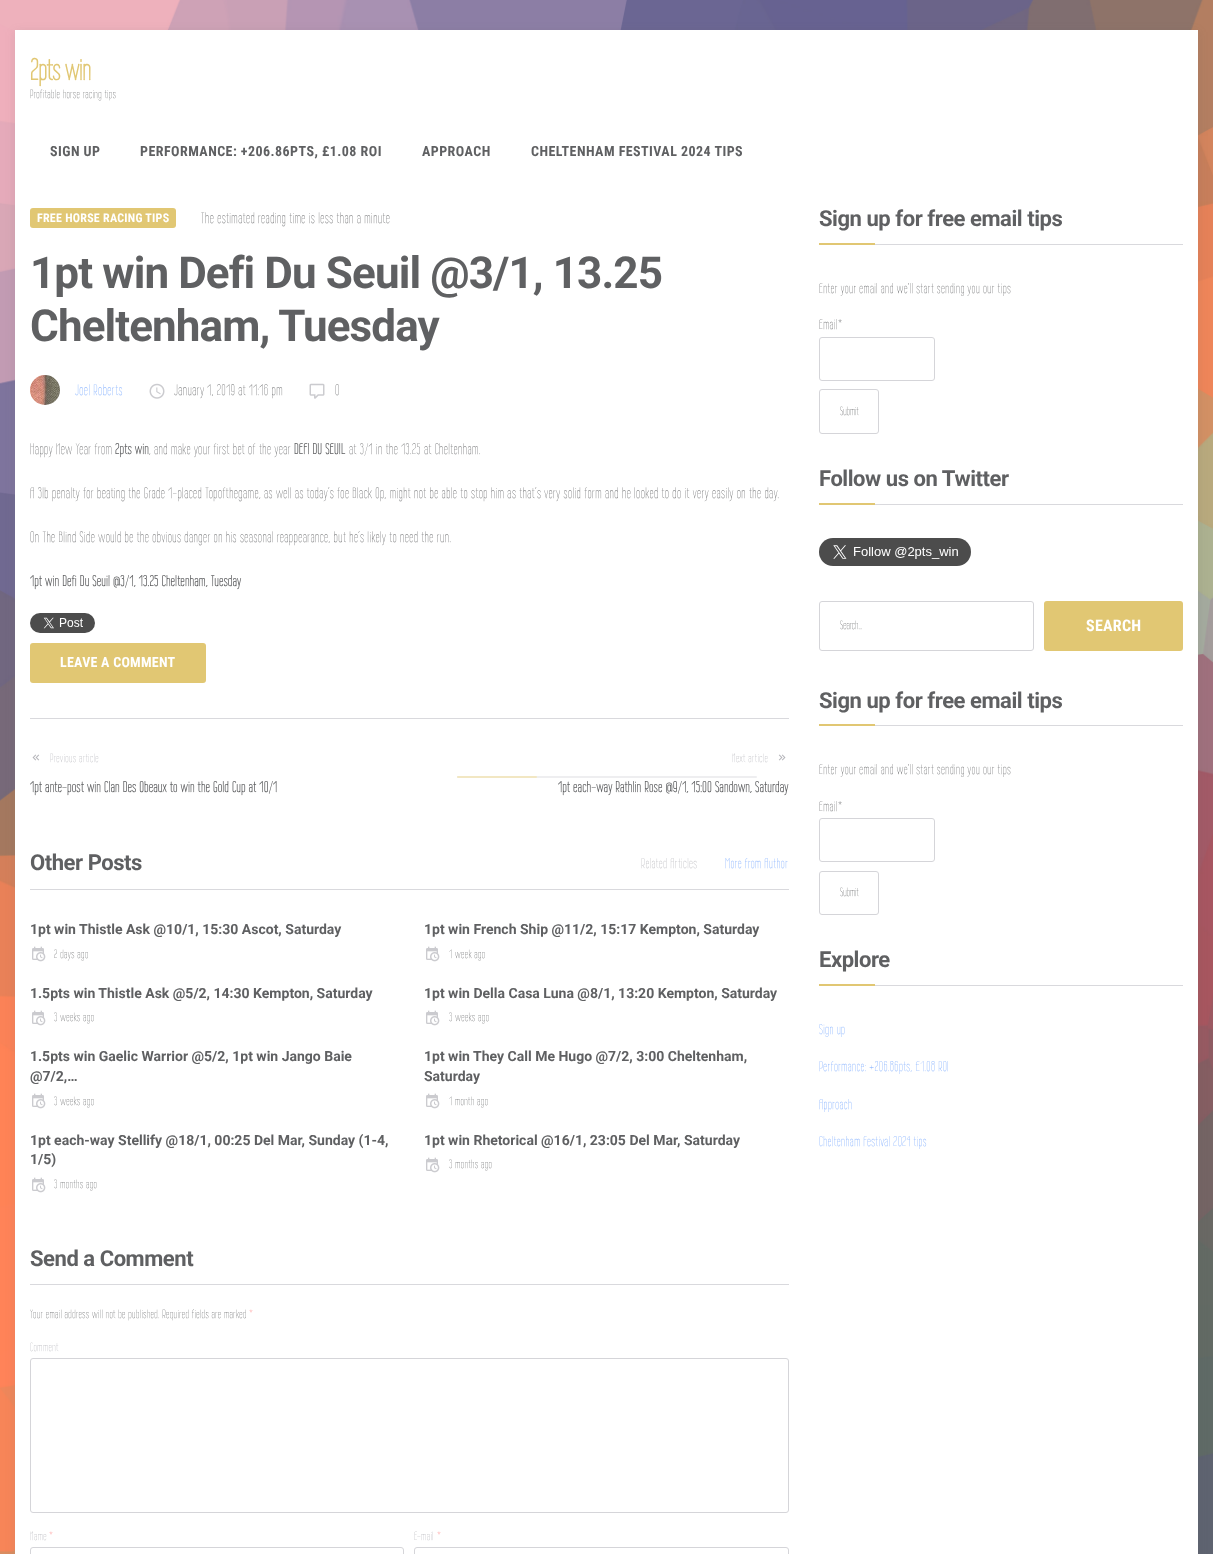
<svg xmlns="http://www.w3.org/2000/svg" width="1213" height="1554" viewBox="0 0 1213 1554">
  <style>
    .t1 { font: bold 30px Wire One; fill: #e1c773; }
    .t2 { font: 12px Wire One; letter-spacing: 0.45px; fill: #5f6062; }
    .t3 { font: bold 14px Roboto Condensed; letter-spacing: 0.45px; fill: #5f6062; }
    .t4 { font: bold 12px Roboto Condensed; letter-spacing: 0.25px; fill: #fff; }
    .t5 { font: 15px Wire One; letter-spacing: 0.45px; fill: #5f6062; }
    .t6 { font: bold 44px Roboto; letter-spacing: -0.9px; fill: #5f6062; }
    .t7 { font: 15px Wire One; letter-spacing: 0.45px; fill: #73a5ff; }
    .t8 { font: bold 15px Wire One; letter-spacing: 0.45px; fill: #5f6062; }
    .t9 { font: bold 14px Roboto Condensed; letter-spacing: 0.25px; fill: #fff; }
    .t10 { font: 12px Wire One; letter-spacing: 0.45px; fill: #b3b3b8; }
    .t11 { font: bold 22px Roboto; letter-spacing: -0.45px; fill: #5f6062; }
    .t12 { font: 14px Wire One; letter-spacing: 0.45px; fill: #b3b3b8; }
    .t13 { font: 14px Wire One; letter-spacing: 0.45px; fill: #73a5ff; }
    .t14 { font: bold 14px Roboto; fill: #5f6062; }
    .t15 { font: 12px Wire One; letter-spacing: 0.45px; fill: #ff7272; }
    .t16 { font: 14px Wire One; letter-spacing: 0.45px; fill: #5f6062; }
    .t17 { font: 12px Wire One; fill: #5f6062; }
    .t18 { font: bold 16px Roboto Condensed; letter-spacing: 0.25px; fill: #fff; }
  </style>
  <rect width="100%" height="100%" fill="#fff"/>
  <image x="0" y="0" width="1213" height="1554" href="images/1.png"/>
  <rect x="15" y="32" width="1183" height="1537" fill="#67676726" filter="blur(5px)"/>
  <rect x="15" y="30" width="1183" height="1524" fill="#fff"/>
  <text x="30" y="80" class="t1">2pts win</text>
  <text x="30" y="98" class="t2">Profitable horse racing tips</text>
  <text x="50" y="156" class="t3">SIGN UP</text>
  <text x="140" y="156" class="t3">PERFORMANCE: +206.86PTS, £1.08 ROI</text>
  <text x="422" y="156" class="t3">APPROACH</text>
  <text x="531" y="156" class="t3">CHELTENHAM FESTIVAL 2024 TIPS</text>
  <rect x="30" y="208" width="146" height="20" rx="3" fill="#e1c773"/>
  <text x="37" y="222" class="t4">FREE HORSE RACING TIPS</text>
  <text x="201" y="223" class="t5">The estimated reading time is less than a minute</text>
  <text x="30" y="288" class="t6">1pt win Defi Du Seuil @3/1, 13.25</text>
  <text x="30" y="341" class="t6">Cheltenham, Tuesday</text>
  <image x="30" y="375" width="30" height="30" href="images/2.png"/>
  <text x="75" y="395" class="t7">Joel Roberts</text>
  <image x="149" y="383" width="16" height="16" href="images/3.png"/>
  <text x="174" y="395" class="t5">January 1, 2019 at 11:16 pm</text>
  <image x="309" y="383" width="16" height="16" href="images/4.png"/>
  <text x="335" y="395" class="t5">0</text>
  <text x="30" y="454" class="t5">Happy New Year from</text>
  <text x="115" y="454" class="t8">2pts win</text>
  <text x="149" y="454" class="t5">, and make your first bet of the year</text>
  <text x="294" y="454" class="t8">DEFI DU SEUIL</text>
  <text x="349" y="454" class="t5">at 3/1 in the 13.25 at Cheltenham.</text>
  <text x="30" y="498" class="t5">A 3lb penalty for beating the Grade 1-placed Topofthegame, as well as today’s foe Black Op, might not be able to stop him as that’s very solid form and he looked to do it very easily on the day.</text>
  <text x="30" y="542" class="t5">On The Blind Side would be the obvious danger on his seasonal reappearance, but he’s likely to need the run.</text>
  <text x="30" y="586" class="t8">1pt win Defi Du Seuil @3/1, 13.25 Cheltenham, Tuesday</text>
  <image x="30" y="613" width="65" height="20" href="images/5.png"/>
  <rect x="30" y="643" width="176" height="40" rx="3" fill="#e1c773"/>
  <text x="60" y="667" class="t9">LEAVE A COMMENT</text>
  <rect x="30" y="718" width="759" height="1" fill="#d9d9dd"/>
  <image x="32" y="754" width="8" height="7" href="images/6.png"/>
  <text x="50" y="762" class="t10">Previous article</text>
  <text x="30" y="792" class="t8">1pt ante-post win Clan Des Obeaux to win the Gold Cup at 10/1</text>
  <text x="732" y="762" class="t10">Next article</text>
  <image x="778" y="754" width="8" height="7" href="images/7.png"/>
  <text x="558" y="792" class="t8">1pt each-way Rathlin Rose @9/1, 15:00 Sandown, Saturday</text>
  <rect x="30" y="889" width="759" height="1" fill="#d9d9dd"/>
  <text x="30" y="870" class="t11">Other Posts</text>
  <text x="641" y="868" class="t12">Related Articles</text>
  <text x="725" y="868" class="t13">More from Author</text>
  <text x="30" y="934" class="t14">1pt win Thistle Ask @10/1, 15:30 Ascot, Saturday</text>
  <image x="32" y="946" width="14" height="16" href="images/8.png"/>
  <text x="54" y="958" class="t2">2 days ago</text>
  <text x="424" y="934" class="t14">1pt win French Ship @11/2, 15:17 Kempton, Saturday</text>
  <image x="426" y="946" width="14" height="16" href="images/8.png"/>
  <text x="449" y="958" class="t2">1 week ago</text>
  <text x="30" y="998" class="t14">1.5pts win Thistle Ask @5/2, 14:30 Kempton, Saturday</text>
  <image x="32" y="1010" width="14" height="16" href="images/8.png"/>
  <text x="54" y="1021" class="t2">3 weeks ago</text>
  <text x="424" y="998" class="t14">1pt win Della Casa Luna @8/1, 13:20 Kempton, Saturday</text>
  <image x="426" y="1010" width="14" height="16" href="images/8.png"/>
  <text x="449" y="1021" class="t2">3 weeks ago</text>
  <text x="30" y="1061" class="t14">1.5pts win Gaelic Warrior @5/2, 1pt win Jango Baie</text>
  <text x="30" y="1081" class="t14">@7/2,…</text>
  <image x="32" y="1093" width="14" height="16" href="images/8.png"/>
  <text x="54" y="1105" class="t2">3 weeks ago</text>
  <text x="424" y="1061" class="t14">1pt win They Call Me Hugo @7/2, 3:00 Cheltenham,</text>
  <text x="424" y="1081" class="t14">Saturday</text>
  <image x="426" y="1093" width="14" height="16" href="images/8.png"/>
  <text x="449" y="1105" class="t2">1 month ago</text>
  <text x="30" y="1145" class="t14">1pt each-way Stellify @18/1, 00:25 Del Mar, Sunday (1-4,</text>
  <text x="30" y="1164" class="t14">1/5)</text>
  <image x="32" y="1177" width="14" height="16" href="images/8.png"/>
  <text x="54" y="1188" class="t2">3 months ago</text>
  <text x="424" y="1145" class="t14">1pt win Rhetorical @16/1, 23:05 Del Mar, Saturday</text>
  <image x="426" y="1157" width="14" height="16" href="images/8.png"/>
  <text x="449" y="1168" class="t2">3 months ago</text>
  <rect x="30" y="1284" width="759" height="1" fill="#d9d9dd"/>
  <text x="30" y="1266" class="t11">Send a Comment</text>
  <text x="30" y="1318" class="t2">Your email address will not be published. Required fields are marked</text>
  <text x="249" y="1318" class="t15">*</text>
  <text x="30" y="1351" class="t10">Comment</text>
  <rect x="30.5" y="1358.5" width="758" height="154" rx="2.5" fill="none" stroke="#d5d5d9"/>
  <text x="30" y="1540" class="t10">Name</text>
  <text x="49" y="1540" class="t15">*</text>
  <rect x="30.5" y="1547.5" width="373" height="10" rx="2.5" fill="none" stroke="#d5d5d9"/>
  <text x="414" y="1540" class="t10">E-mail</text>
  <text x="437" y="1540" class="t15">*</text>
  <rect x="414.5" y="1547.5" width="374" height="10" rx="2.5" fill="none" stroke="#d5d5d9"/>
  <rect x="875" y="244" width="308" height="1" fill="#d9d9dd"/>
  <text x="819" y="226" class="t11">Sign up for free email tips</text>
  <rect x="819" y="243" width="56" height="2" fill="#e1c773"/>
  <text x="819" y="293" class="t16">Enter your email and we'll start sending you our tips</text>
  <text x="819" y="329" class="t16">Email*</text>
  <rect x="819.5" y="337.5" width="115" height="43" rx="2.5" fill="none" stroke="#d5d5d9"/>
  <rect x="819.5" y="389.5" width="59" height="44" rx="2.5" fill="none" stroke="#d5d5d9"/>
  <text x="840" y="415" class="t17">Submit</text>
  <rect x="875" y="504" width="308" height="1" fill="#d9d9dd"/>
  <text x="819" y="486" class="t11">Follow us on Twitter</text>
  <rect x="819" y="503" width="56" height="2" fill="#e1c773"/>
  <image x="819" y="538" width="152" height="28" href="images/9.png"/>
  <rect x="819.5" y="601.5" width="214" height="49" rx="2.5" fill="none" stroke="#d5d5d9"/>
  <text x="840" y="629" class="t17">Search...</text>
  <rect x="1044" y="601" width="139" height="50" rx="3" fill="#e1c773"/>
  <text x="1086" y="631" class="t18">SEARCH</text>
  <rect x="875" y="725" width="308" height="1" fill="#d9d9dd"/>
  <text x="819" y="708" class="t11">Sign up for free email tips</text>
  <rect x="819" y="724" width="56" height="2" fill="#e1c773"/>
  <text x="819" y="774" class="t16">Enter your email and we'll start sending you our tips</text>
  <text x="819" y="811" class="t16">Email*</text>
  <rect x="819.5" y="818.5" width="115" height="43" rx="2.5" fill="none" stroke="#d5d5d9"/>
  <rect x="819.5" y="871.5" width="59" height="43" rx="2.5" fill="none" stroke="#d5d5d9"/>
  <text x="840" y="896" class="t17">Submit</text>
  <rect x="875" y="985" width="308" height="1" fill="#d9d9dd"/>
  <text x="819" y="967" class="t11">Explore</text>
  <rect x="819" y="984" width="56" height="2" fill="#e1c773"/>
  <text x="819" y="1034" class="t13">Sign up</text>
  <text x="819" y="1071" class="t13">Performance: +206.86pts, £1.08 ROI</text>
  <text x="819" y="1109" class="t13">Approach</text>
  <text x="819" y="1146" class="t13">Cheltenham Festival 2024 tips</text>
  <rect x="457" y="776" width="300" height="2" rx="1" fill="#eeeef0"/>
  <rect x="457" y="776" width="80" height="2" rx="1" fill="#f2e7c3"/>
</svg>
